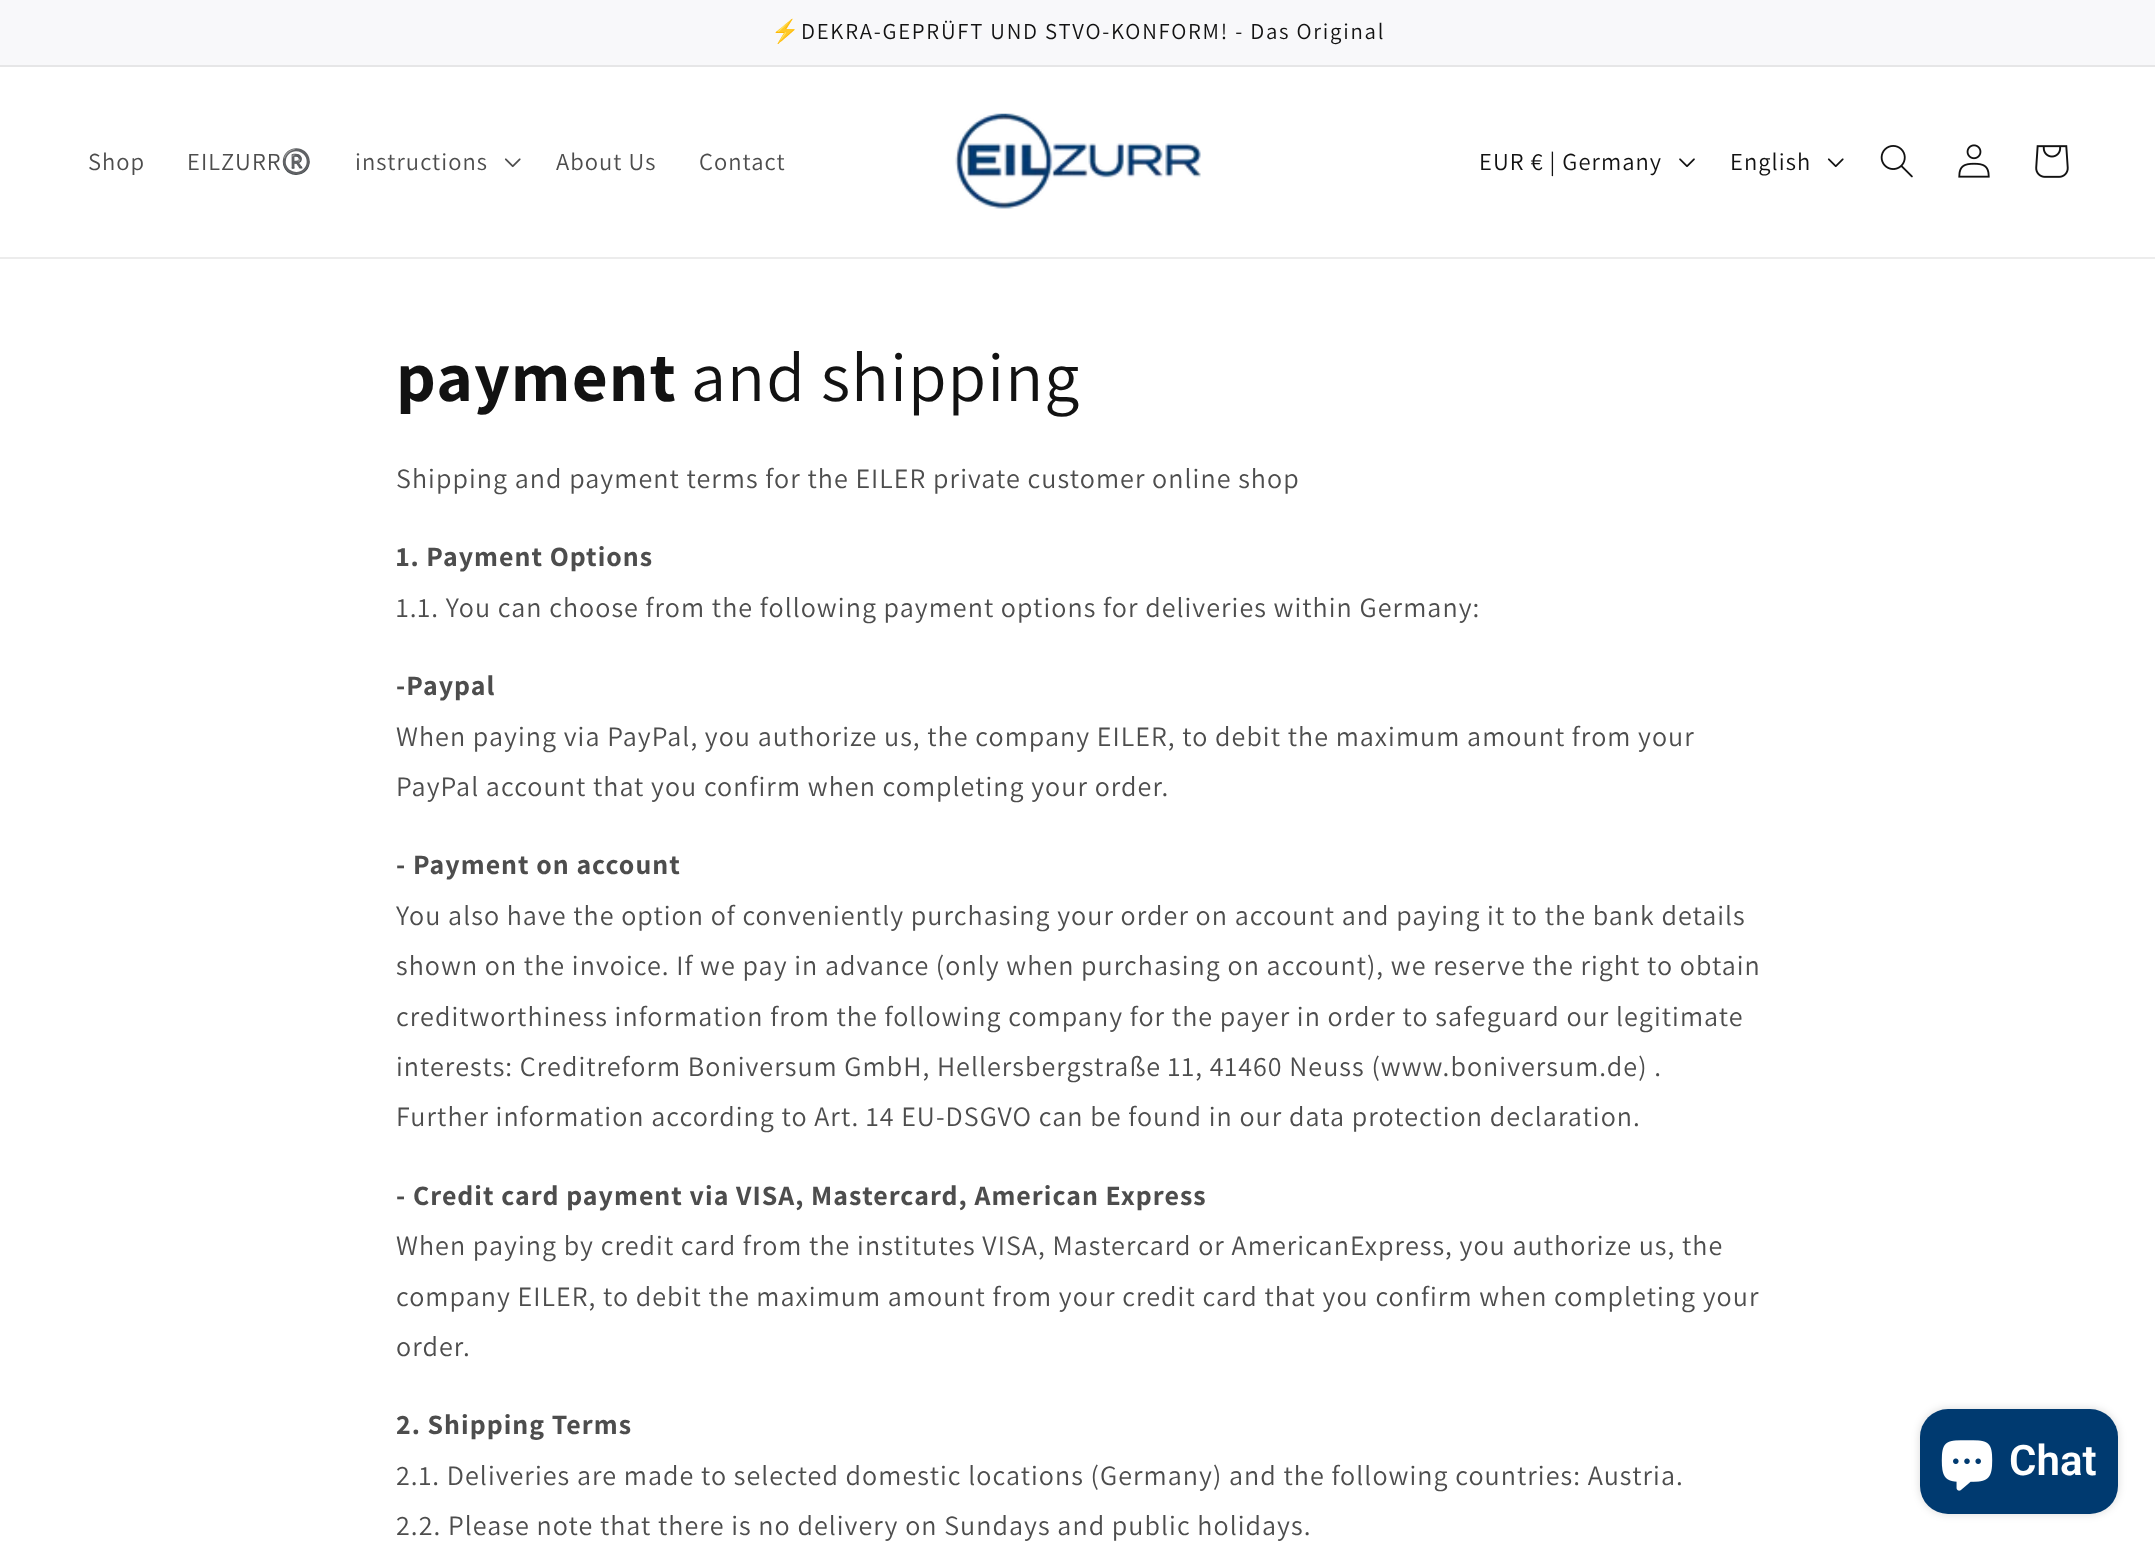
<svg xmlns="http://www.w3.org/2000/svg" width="2155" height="1549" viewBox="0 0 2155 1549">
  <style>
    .t1 { font: 22.75px Noto Color Emoji; letter-spacing: 1.75px; fill: #121212; }
    .t2 { font: 22.75px Assistant; letter-spacing: 1.75px; fill: #121212; }
    .t3 { font: 24.5px Assistant; letter-spacing: 1.05px; fill: #4d4d4d; }
    .t4 { font: 24.5px Noto Color Emoji; letter-spacing: 1.05px; fill: #4d4d4d; }
    .t5 { font: 24.5px Assistant; letter-spacing: 1.05px; fill: #121212; }
    .t6 { font: bold 70px Assistant; letter-spacing: 1.05px; fill: #121212; }
    .t7 { font: 70px Assistant; letter-spacing: 1.05px; fill: #121212; }
    .t8 { font: 28px Assistant; letter-spacing: 1.05px; fill: #4d4d4d; }
    .t9 { font: bold 28px Assistant; letter-spacing: 1.05px; fill: #4d4d4d; }
    .t10 { font: 600 42px Roboto; fill: #fff; }
  </style>
  <rect width="100%" height="100%" fill="#fff"/>
  <rect x="0" y="0" width="2155" height="65" fill="#f8f8fa"/>
  <rect x="0" y="65" width="2155" height="2" fill="#e6e6e7"/>
  <text x="771" y="39" class="t1">⚡</text>
  <text x="801" y="39" class="t2">DEKRA-GEPRÜFT UND STVO-KONFORM! - Das Original</text>
  <rect x="0" y="257" width="2155" height="2" fill="#ececec"/>
  <text x="88" y="170" class="t3">Shop</text>
  <text x="187" y="170" class="t3">EILZURR</text>
  <text x="281" y="170" class="t4">®️</text>
  <text x="355" y="170" class="t3">instructions</text>
  <image x="504" y="158" width="17" height="10" href="images/1.png"/>
  <text x="556" y="170" class="t3">About Us</text>
  <text x="699" y="170" class="t3">Contact</text>
  <image x="955" y="113" width="246" height="96" href="images/2.png"/>
  <text x="1479" y="170" class="t5">EUR € | Germany</text>
  <image x="1679" y="158" width="16" height="9" href="images/3.png"/>
  <text x="1730" y="170" class="t5">English</text>
  <image x="1827" y="158" width="17" height="10" href="images/4.png"/>
  <image x="1880" y="145" width="33" height="33" href="images/5.png"/>
  <image x="1958" y="144" width="32" height="34" href="images/6.png"/>
  <image x="2035" y="145" width="34" height="33" href="images/7.png"/>
  <text x="396" y="401" class="t6">payment</text>
  <text x="691" y="401" class="t7">and shipping</text>
  <text x="396" y="488" class="t8">Shipping and payment terms for the EILER private customer online shop</text>
  <text x="396" y="566" class="t9">1. Payment Options</text>
  <text x="396" y="617" class="t8">1.1. You can choose from the following payment options for deliveries within Germany:</text>
  <text x="396" y="695" class="t9">-Paypal</text>
  <text x="396" y="746" class="t8">When paying via PayPal, you authorize us, the company EILER, to debit the maximum amount from your</text>
  <text x="396" y="796" class="t8">PayPal account that you confirm when completing your order.</text>
  <text x="396" y="874" class="t9">- Payment on account</text>
  <text x="396" y="925" class="t8">You also have the option of conveniently purchasing your order on account and paying it to the bank details</text>
  <text x="396" y="975" class="t8">shown on the invoice. If we pay in advance (only when purchasing on account), we reserve the right to obtain</text>
  <text x="396" y="1026" class="t8">creditworthiness information from the following company for the payer in order to safeguard our legitimate</text>
  <text x="396" y="1076" class="t8">interests: Creditreform Boniversum GmbH, Hellersbergstraße 11, 41460 Neuss (www.boniversum.de) .</text>
  <text x="396" y="1126" class="t8">Further information according to Art. 14 EU-DSGVO can be found in our data protection declaration.</text>
  <text x="396" y="1205" class="t9">- Credit card payment via VISA, Mastercard, American Express</text>
  <text x="396" y="1255" class="t8">When paying by credit card from the institutes VISA, Mastercard or AmericanExpress, you authorize us, the</text>
  <text x="396" y="1306" class="t8">company EILER, to debit the maximum amount from your credit card that you confirm when completing your</text>
  <text x="396" y="1356" class="t8">order.</text>
  <text x="396" y="1434" class="t9">2. Shipping Terms</text>
  <text x="396" y="1485" class="t8">2.1. Deliveries are made to selected domestic locations (Germany) and the following countries: Austria.</text>
  <text x="396" y="1535" class="t8">2.2. Please note that there is no delivery on Sundays and public holidays.</text>
  <rect x="1920" y="1409" width="198" height="105" rx="28" fill="#00000026" filter="blur(4.5px)"/>
  <rect x="1920" y="1409" width="198" height="105" rx="28" fill="#003a70"/>
  <image x="1941" y="1440" width="52" height="51" href="images/8.png"/>
  <text x="2009" y="1475" class="t10">Chat</text>
</svg>
